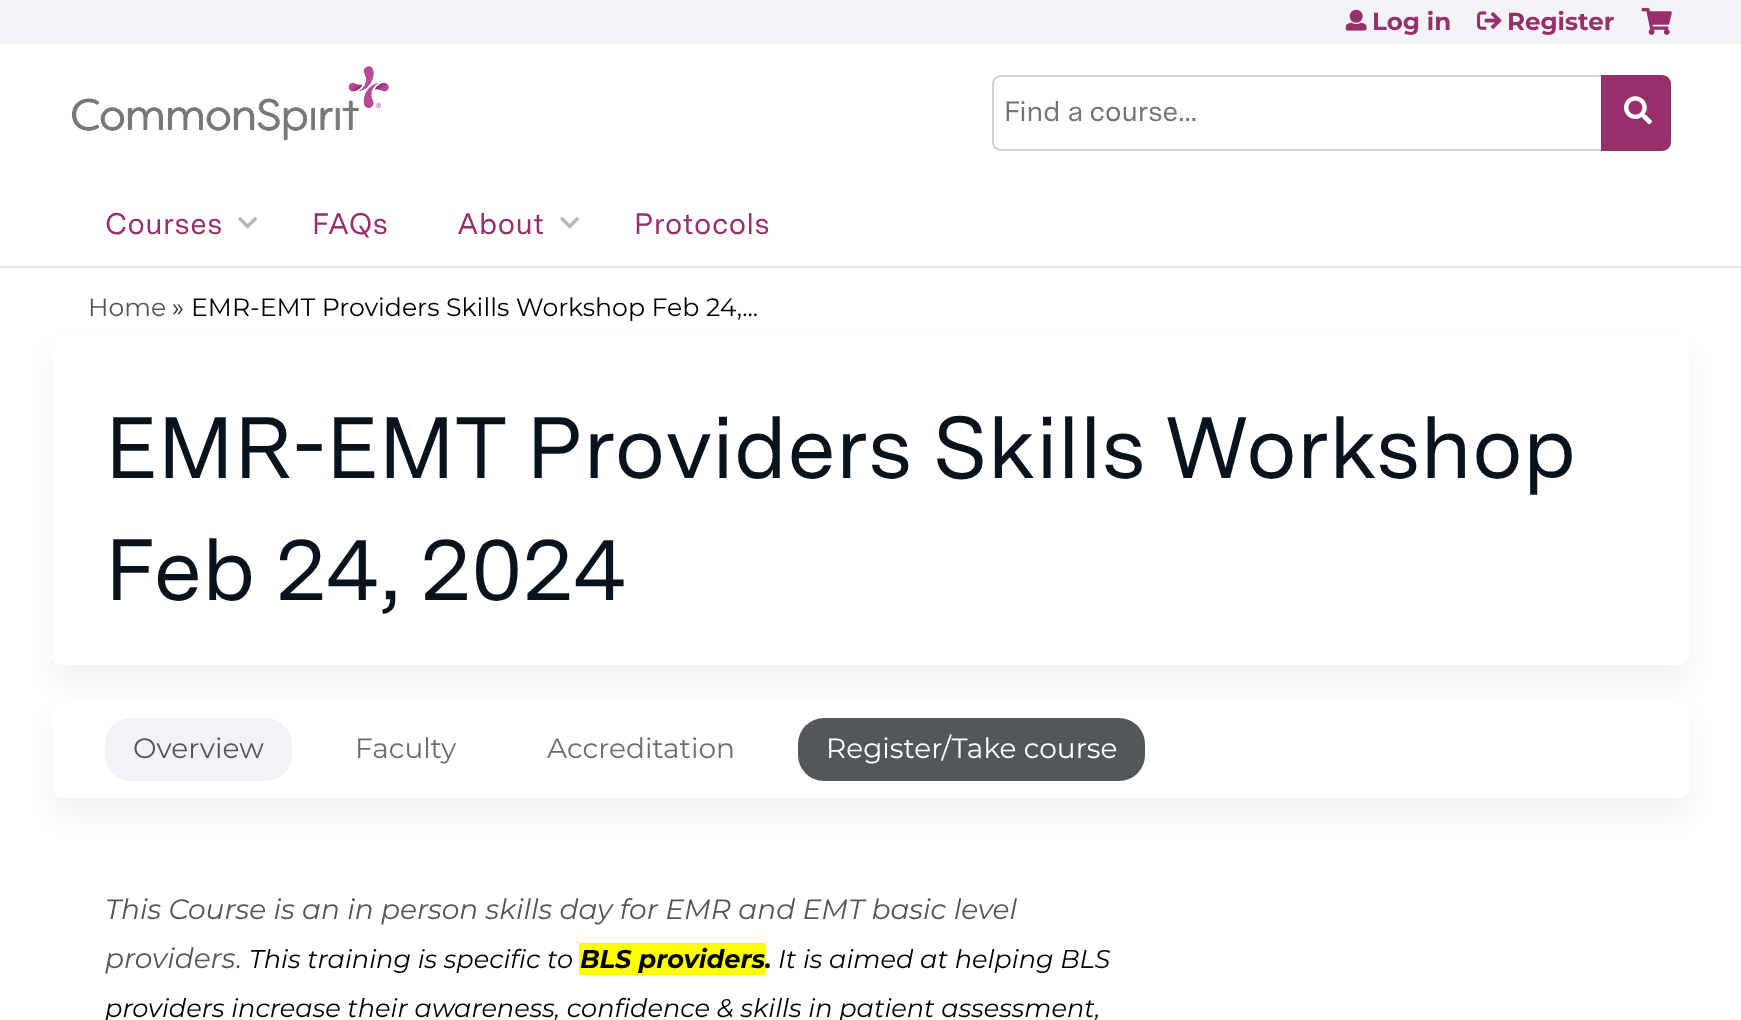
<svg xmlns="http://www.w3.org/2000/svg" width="1741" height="1020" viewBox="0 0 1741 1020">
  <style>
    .t1 { font: bold 24.5px Montserrat; fill: #972f6a; }
    .t2 { font: 28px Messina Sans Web; fill: #757575; }
    .t3 { font: 29.5px Messina Sans Web; letter-spacing: 0.5px; fill: #972f6a; }
    .t4 { font: 25.2px Montserrat; fill: #53565a; }
    .t5 { font: 25.2px Montserrat; fill: #2f2f2f; }
    .t6 { font: 25.2px Montserrat; fill: #000; }
    .t7 { font: 86.75px Messina Sans Web; fill: #08131e; }
    .t8 { font: 28px Montserrat; fill: #53565a; }
    .t9 { font: 28px Montserrat; fill: #6d6d6d; }
    .t10 { font: 28px Montserrat; fill: #fff; }
    .t11 { font: italic 28px Montserrat; fill: #53565a; }
    .t12 { font: italic 25.65px Montserrat; fill: #000; }
    .t13 { font: italic bold 25.65px Montserrat; fill: #000; }
  </style>
  <rect width="100%" height="100%" fill="#fff"/>
  <rect x="0" y="0" width="1741" height="44" fill="#f2f3f7"/>
  <image x="71" y="66" width="318" height="75" href="images/1.png"/>
  <image x="1345" y="9" width="22" height="22" href="images/2.png"/>
  <text x="1372" y="30" class="t1">Log in</text>
  <image x="1477" y="11" width="25" height="19" href="images/3.png"/>
  <text x="1507" y="30" class="t1">Register</text>
  <image x="1641" y="7" width="31" height="28" href="images/4.png"/>
  <path d="M1001 76H1602V150H1001C996.5 150 993 146.5 993 142V84C993 79.5 996.5 76 1001 76Z" fill="none" stroke="#d1d1d1" stroke-width="2"/>
  <path d="M1601 75H1662C1667 75 1671 79 1671 84V142C1671 147 1667 151 1662 151H1601Z" fill="#972f6a"/>
  <text x="1004" y="121" class="t2">Find a course...</text>
  <image x="1624" y="96" width="28" height="29" href="images/5.png"/>
  <rect x="0" y="266" width="1741" height="2" fill="#e0e7eb"/>
  <text x="105" y="234" class="t3">Courses</text>
  <image x="238" y="217" width="19" height="12" href="images/6.png"/>
  <text x="312" y="234" class="t3">FAQs</text>
  <text x="457" y="234" class="t3">About</text>
  <image x="560" y="217" width="19" height="12" href="images/6.png"/>
  <text x="634" y="234" class="t3">Protocols</text>
  <text x="88" y="316" class="t4">Home</text>
  <text x="172" y="316" class="t5">»</text>
  <text x="191" y="316" class="t6">EMR-EMT Providers Skills Workshop Feb 24,...</text>
  <rect x="53" y="352" width="1636" height="331" rx="9" fill="#0000000d" filter="blur(13px)"/>
  <rect x="53" y="334" width="1636" height="331" rx="9" fill="#fff"/>
  <text x="105" y="478" word-spacing="-0.5" class="t7">EMR-EMT Providers Skills Workshop</text>
  <text x="105" y="600" class="t7">Feb 24, 2024</text>
  <rect x="53" y="718" width="1636" height="98" rx="9" fill="#0000000d" filter="blur(13px)"/>
  <rect x="53" y="700" width="1636" height="98" rx="9" fill="#fff"/>
  <rect x="105" y="718" width="187" height="63" rx="26" fill="#f2f3f7"/>
  <text x="133" y="758" class="t8">Overview</text>
  <text x="355" y="758" class="t9">Faculty</text>
  <text x="547" y="758" class="t9">Accreditation</text>
  <rect x="798" y="718" width="347" height="63" rx="26" fill="#53565a"/>
  <text x="826" y="758" class="t10">Register/Take course</text>
  <text x="105" y="919" class="t11">This Course is an in person skills day for EMR and EMT basic level</text>
  <text x="105" y="968" class="t11">providers</text>
  <text x="235" y="968" class="t8">.</text>
  <text x="249" y="968" class="t12">This training is specific to</text>
  <rect x="579" y="943" width="186" height="32" fill="#ff0"/>
  <text x="580" y="968" class="t13">BLS providers.</text>
  <text x="778" y="968" class="t12">It is aimed at helping BLS</text>
  <text x="105" y="1017" class="t12">providers increase their awareness, confidence &amp; skills in patient assessment,</text>
</svg>
